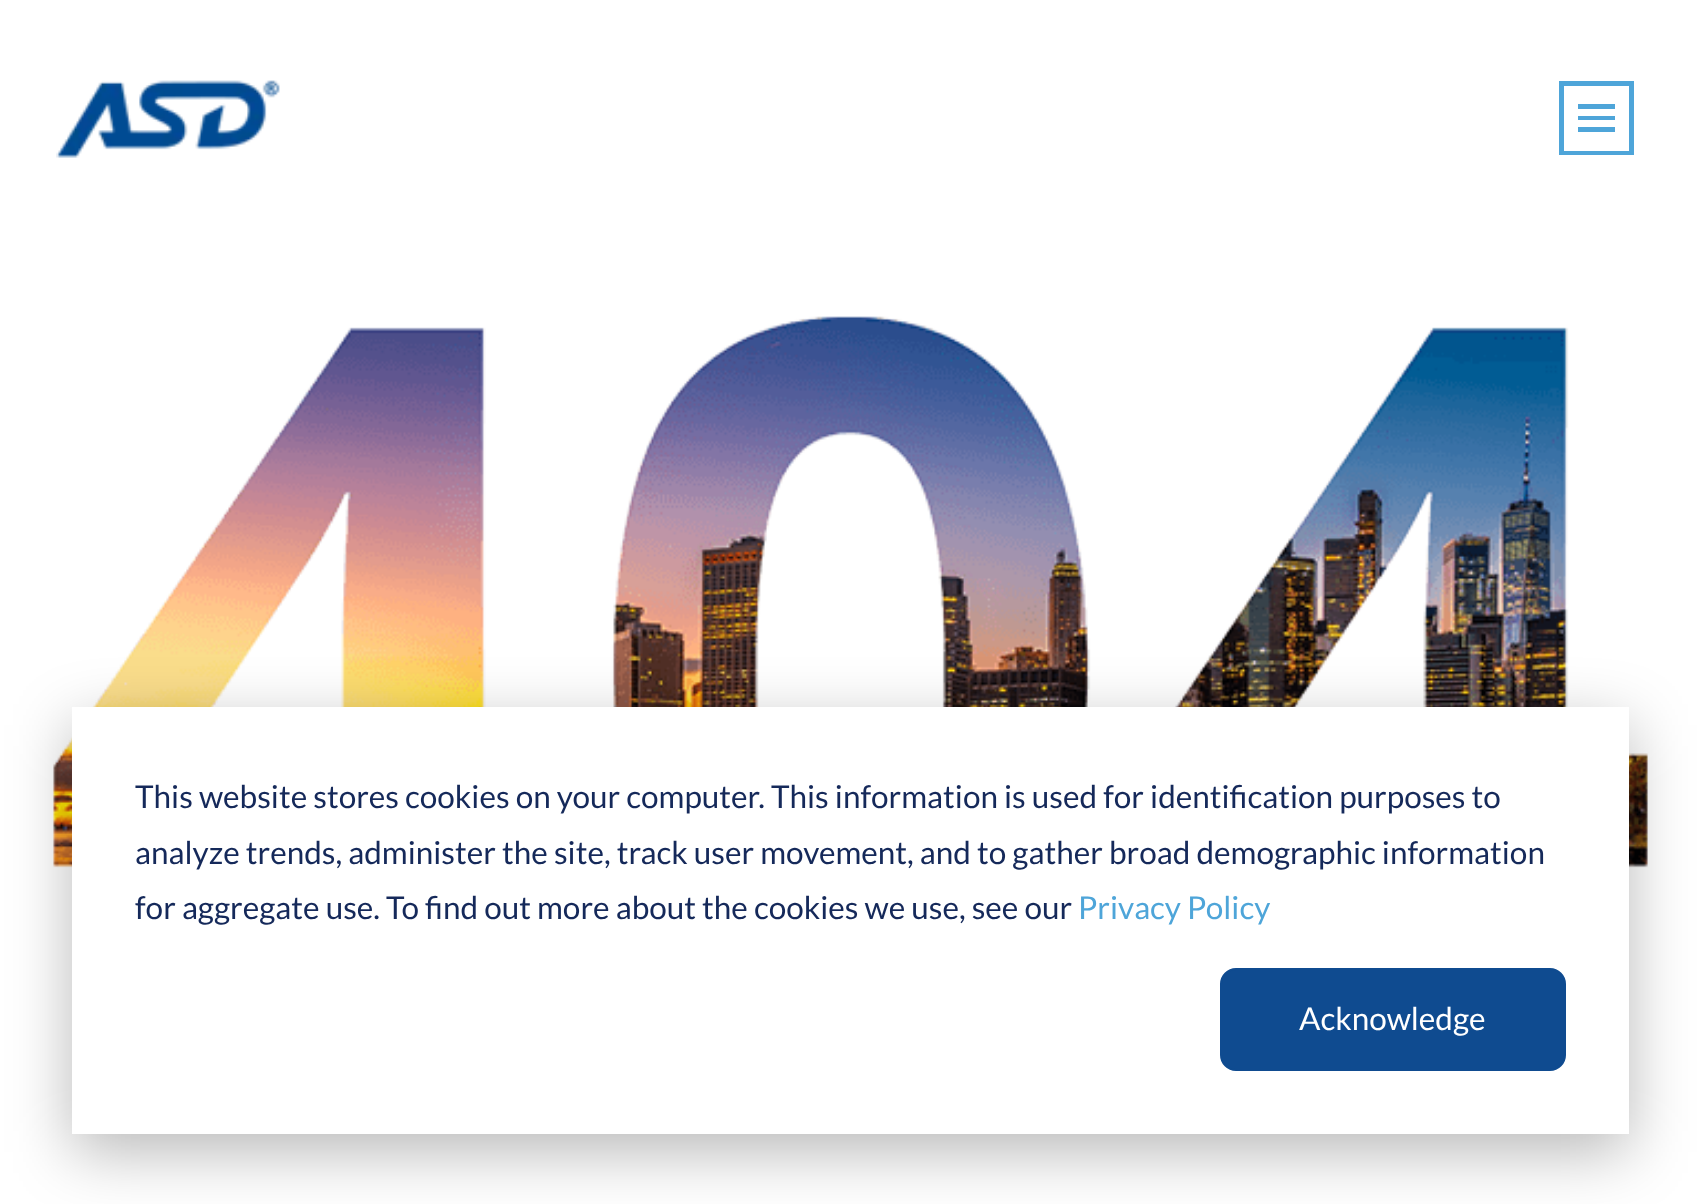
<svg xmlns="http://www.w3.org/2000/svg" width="1699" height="1204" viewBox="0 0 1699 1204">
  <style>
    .t1 { font: 31.5px Lato; fill: #15295a; }
    .t2 { font: 31.5px Lato; fill: #4ea5d9; }
    .t3 { font: 31.5px Lato; fill: #fff; }
  </style>
  <rect width="100%" height="100%" fill="#fff"/>
  <image x="56" y="80" width="224" height="78" href="images/1.png"/>
  <rect x="1578" y="104" width="37" height="5" fill="#4ea5d9"/>
  <rect x="1578" y="116" width="37" height="4" fill="#4ea5d9"/>
  <rect x="1578" y="127" width="37" height="5" fill="#4ea5d9"/>
  <path d="M1559 81V155H1634V81ZM1629 151H1564V86H1629Z" fill="#4ea5d9"/>
  <image x="53" y="316" width="1595" height="552" href="images/2.png"/>
  <rect x="72" y="725" width="1557" height="427" fill="#00000047" filter="blur(31.5px)"/>
  <rect x="72" y="707" width="1557" height="427" fill="#fff"/>
  <text x="135" y="808" class="t1">This website stores cookies on your computer. This information is used for identification purposes to</text>
  <text x="135" y="864" class="t1">analyze trends, administer the site, track user movement, and to gather broad demographic information</text>
  <text x="135" y="919" class="t1">for aggregate use. To find out more about the cookies we use, see our</text>
  <text x="1078" y="919" class="t2">Privacy Policy</text>
  <rect x="1221" y="969" width="344" height="101" rx="15" fill="#0f4b90" stroke="#0f4b90" stroke-width="2"/>
  <text x="1299" y="1030" class="t3">Acknowledge</text>
</svg>
